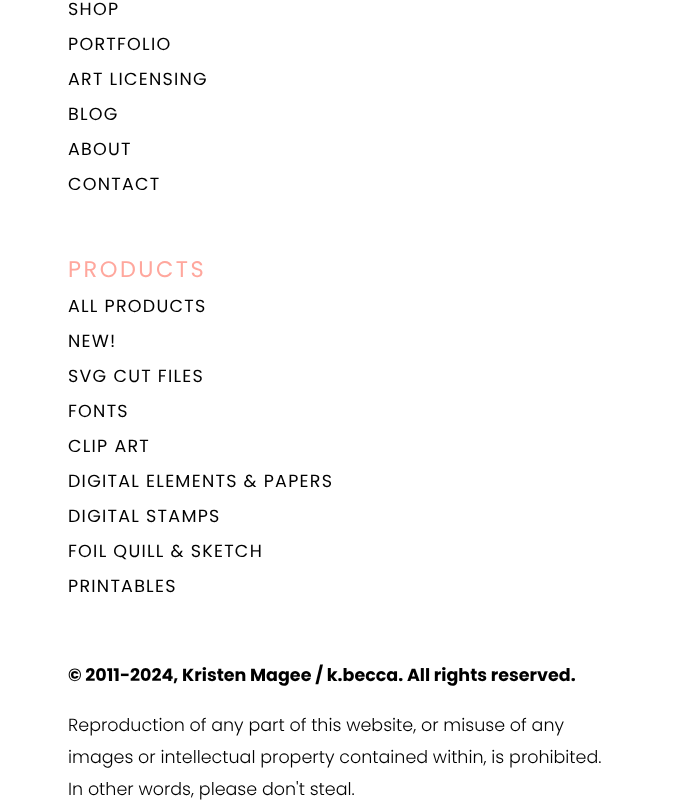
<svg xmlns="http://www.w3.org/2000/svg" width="683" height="812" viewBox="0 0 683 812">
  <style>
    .t1 { font: 17.5px Poppins; letter-spacing: 1.25px; fill: #000; }
    .t2 { font: 22.5px Poppins; letter-spacing: 2.5px; fill: #ffa79d; }
    .t3 { font: bold 17.5px Poppins; fill: #000; }
    .t4 { font: 300 17.5px Poppins; fill: #000; }
  </style>
  <rect width="100%" height="100%" fill="#fff"/>
  <text x="68" y="15" class="t1">SHOP</text>
  <text x="68" y="50" class="t1">PORTFOLIO</text>
  <text x="68" y="85" class="t1">ART LICENSING</text>
  <text x="68" y="120" class="t1">BLOG</text>
  <text x="68" y="155" class="t1">ABOUT</text>
  <text x="68" y="190" class="t1">CONTACT</text>
  <text x="68" y="277" class="t2">PRODUCTS</text>
  <text x="68" y="312" class="t1">ALL PRODUCTS</text>
  <text x="68" y="347" class="t1">NEW!</text>
  <text x="68" y="382" class="t1">SVG CUT FILES</text>
  <text x="68" y="417" class="t1">FONTS</text>
  <text x="68" y="452" class="t1">CLIP ART</text>
  <text x="68" y="487" class="t1">DIGITAL ELEMENTS &amp; PAPERS</text>
  <text x="68" y="522" class="t1">DIGITAL STAMPS</text>
  <text x="68" y="557" class="t1">FOIL QUILL &amp; SKETCH</text>
  <text x="68" y="592" class="t1">PRINTABLES</text>
  <text x="68" y="681" class="t3">© 2011-2024, Kristen Magee / k.becca. All rights reserved.</text>
  <text x="68" y="731" class="t4">Reproduction of any part of this website, or misuse of any</text>
  <text x="68" y="763" class="t4">images or intellectual property contained within, is prohibited.</text>
  <text x="68" y="795" class="t4">In other words, please don't steal.</text>
</svg>
